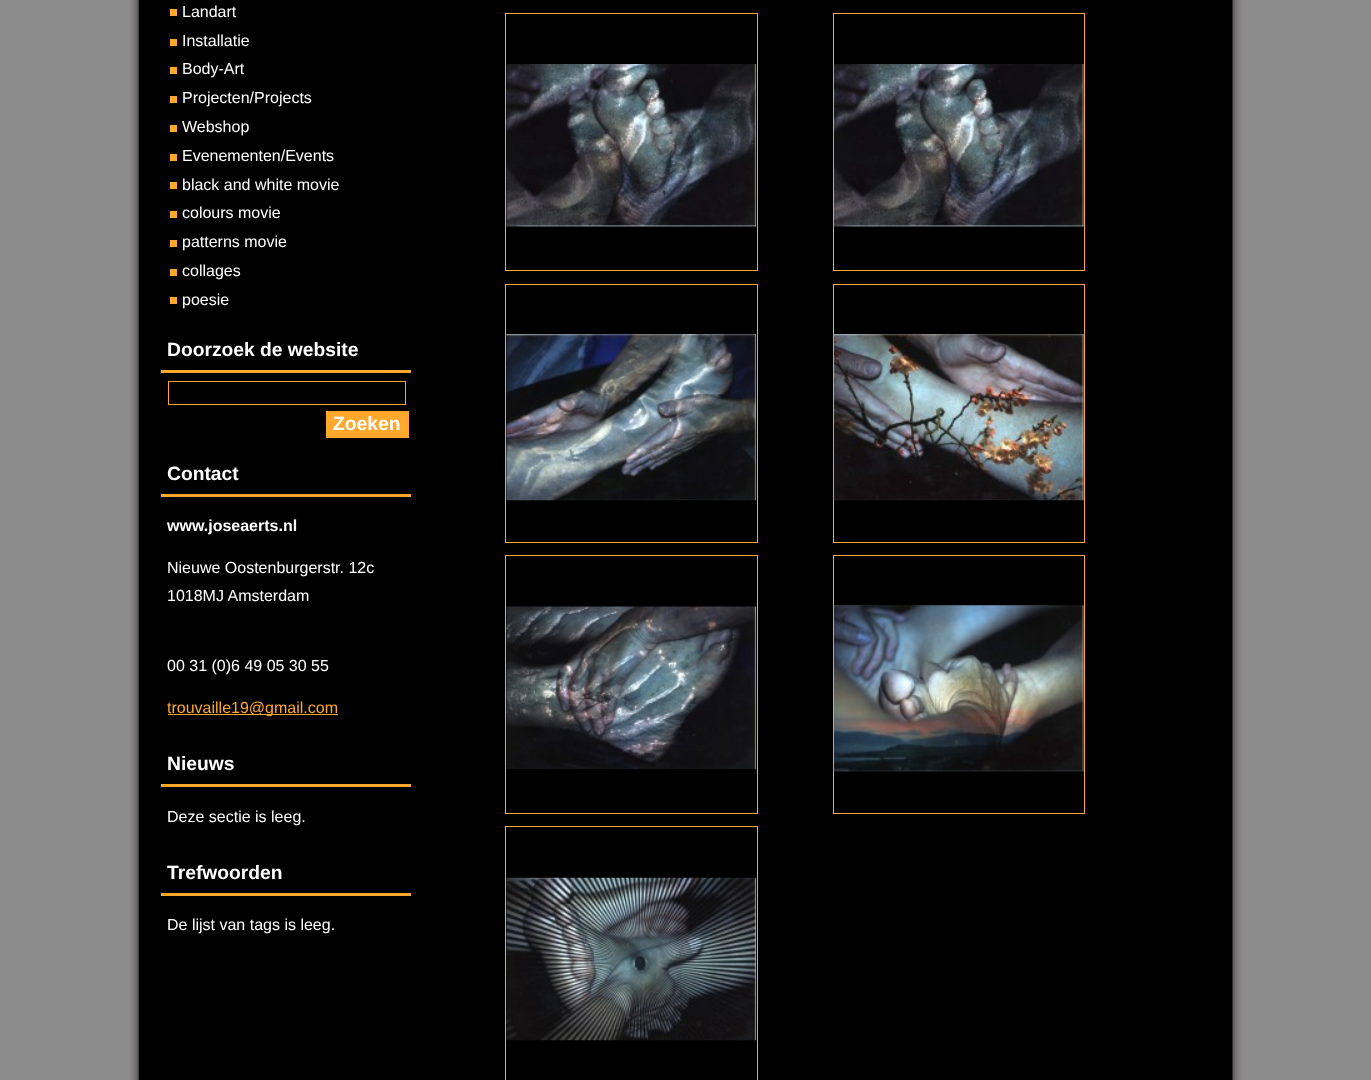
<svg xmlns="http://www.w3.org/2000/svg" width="1371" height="1080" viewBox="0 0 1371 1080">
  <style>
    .t1 { font: 16px Liberation Sans; fill: #fff; }
    .t2 { font: bold 19.25px Liberation Sans; fill: #fff; }
    .t3 { font: bold 16px Liberation Sans; fill: #fff; }
    .t4 { font: 16px Liberation Sans; fill: #ffa82c; }
  </style>
  <rect width="100%" height="100%" fill="#8c8c8c"/>
  <image x="130" y="0" width="1112" height="409" href="images/1.png"/>
  <image x="130" y="409" width="1112" height="671" href="images/2.png"/>
  <text x="182" y="17" class="t1">Landart</text>
  <rect x="170" y="9" width="7" height="7" fill="#ffa82d"/>
  <text x="182" y="46" class="t1">Installatie</text>
  <rect x="170" y="39" width="7" height="7" fill="#ffa82d"/>
  <text x="182" y="74" class="t1">Body-Art</text>
  <rect x="170" y="67" width="7" height="7" fill="#ffa82d"/>
  <text x="182" y="103" class="t1">Projecten/Projects</text>
  <rect x="170" y="96" width="7" height="7" fill="#ffa82d"/>
  <text x="182" y="132" class="t1">Webshop</text>
  <rect x="170" y="125" width="7" height="7" fill="#ffa82d"/>
  <text x="182" y="161" class="t1">Evenementen/Events</text>
  <rect x="170" y="154" width="7" height="7" fill="#ffa82d"/>
  <text x="182" y="190" class="t1">black and white movie</text>
  <rect x="170" y="182" width="7" height="7" fill="#ffa82d"/>
  <text x="182" y="218" class="t1">colours movie</text>
  <rect x="170" y="211" width="7" height="7" fill="#ffa82d"/>
  <text x="182" y="247" class="t1">patterns movie</text>
  <rect x="170" y="240" width="7" height="7" fill="#ffa82d"/>
  <text x="182" y="276" class="t1">collages</text>
  <rect x="170" y="269" width="7" height="7" fill="#ffa82d"/>
  <text x="182" y="305" class="t1">poesie</text>
  <rect x="170" y="297" width="7" height="7" fill="#ffa82d"/>
  <rect x="161" y="370" width="250" height="3" fill="#ffa82c"/>
  <text x="167" y="356" class="t2">Doorzoek de website</text>
  <rect x="168.5" y="381.5" width="237" height="23" fill="none" stroke="#ffa82c"/>
  <rect x="326" y="411" width="83" height="27" fill="#ffa82c"/>
  <text x="333" y="430" class="t2">Zoeken</text>
  <rect x="161" y="494" width="250" height="3" fill="#ffa82c"/>
  <text x="167" y="480" class="t2">Contact</text>
  <text x="167" y="531" class="t3">www.joseaerts.nl</text>
  <text x="167" y="573" class="t1">Nieuwe Oostenburgerstr. 12c</text>
  <text x="167" y="601" class="t1">1018MJ Amsterdam</text>
  <text x="167" y="671" class="t1">00 31 (0)6 49 05 30 55</text>
  <rect x="168" y="714" width="128" height="1" fill="#ffa82c"/>
  <text x="167" y="713" class="t4">trouvaille19@gmail.com</text>
  <rect x="296" y="714" width="42" height="1" fill="#ffa82c"/>
  <rect x="161" y="784" width="250" height="3" fill="#ffa82c"/>
  <text x="167" y="770" class="t2">Nieuws</text>
  <text x="167" y="822" class="t1">Deze sectie is leeg.</text>
  <rect x="161" y="893" width="250" height="3" fill="#ffa82c"/>
  <text x="167" y="879" class="t2">Trefwoorden</text>
  <text x="167" y="930" class="t1">De lijst van tags is leeg.</text>
  <rect x="505.5" y="13.5" width="252" height="257" fill="none" stroke="#ffa82c"/>
  <image x="506" y="64" width="251" height="163" href="images/3.png"/>
  <rect x="833.5" y="13.5" width="251" height="257" fill="none" stroke="#ffa82c"/>
  <image x="833" y="64" width="251" height="163" href="images/4.png"/>
  <rect x="505.5" y="284.5" width="252" height="258" fill="none" stroke="#ffa82c"/>
  <image x="506" y="334" width="251" height="167" href="images/5.png"/>
  <rect x="833.5" y="284.5" width="251" height="258" fill="none" stroke="#ffa82c"/>
  <image x="833" y="334" width="251" height="167" href="images/6.png"/>
  <rect x="505.5" y="555.5" width="252" height="258" fill="none" stroke="#ffa82c"/>
  <image x="506" y="606" width="251" height="163" href="images/7.png"/>
  <rect x="833.5" y="555.5" width="251" height="258" fill="none" stroke="#ffa82c"/>
  <image x="833" y="605" width="251" height="167" href="images/8.png"/>
  <rect x="505.5" y="826.5" width="252" height="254" fill="none" stroke="#ffa82c"/>
  <image x="506" y="877" width="251" height="164" href="images/9.png"/>
</svg>
